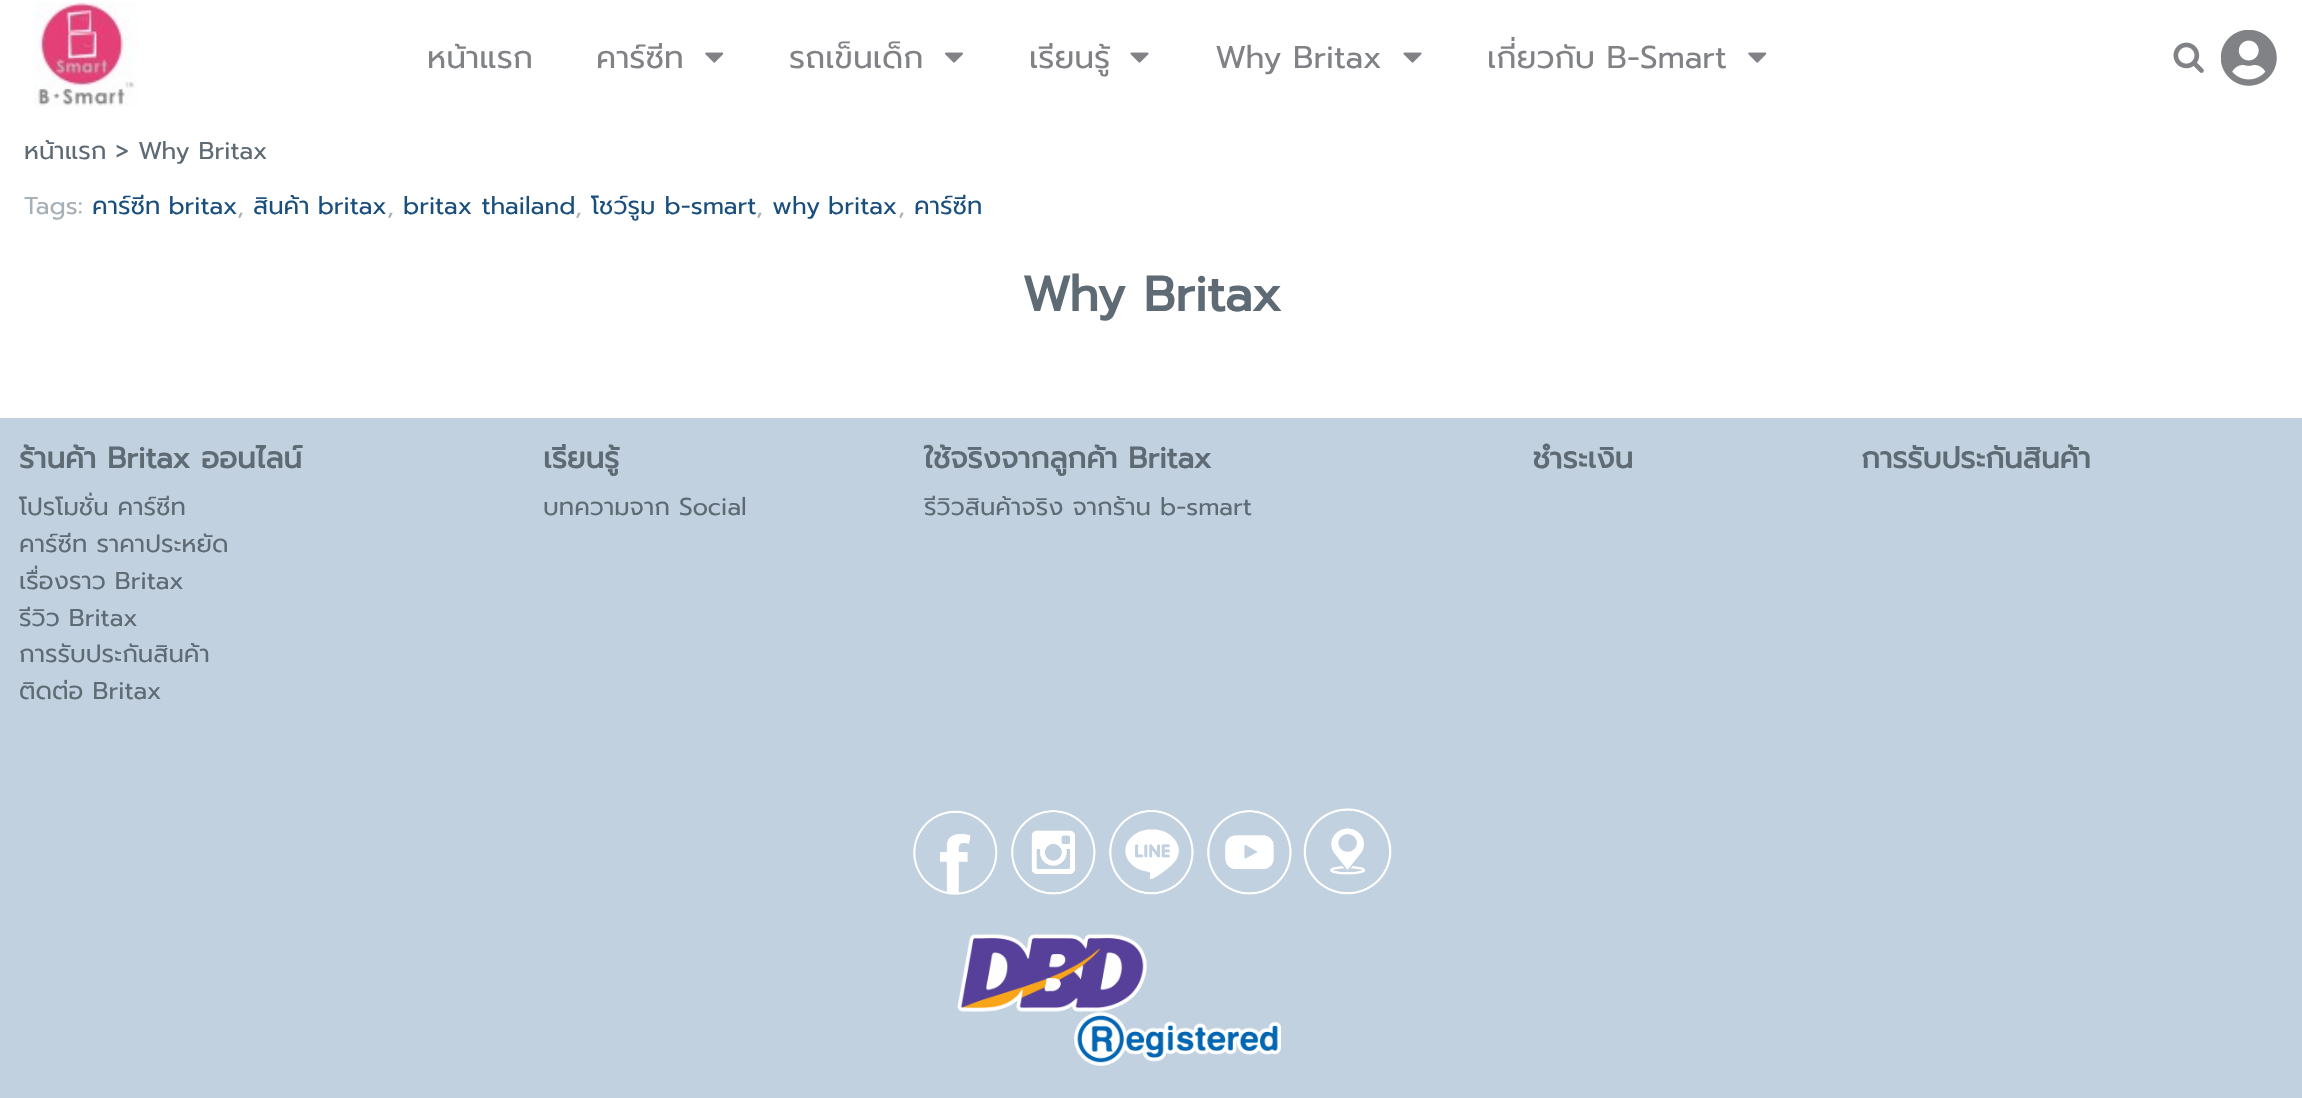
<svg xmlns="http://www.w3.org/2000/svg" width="2302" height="1098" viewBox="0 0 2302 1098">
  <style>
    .t1 { font: 31.5px Prompt; fill: #808285; }
    .t2 { font: 24.5px Prompt; fill: #5e6a74; }
    .t3 { font: 24.5px Prompt; fill: #a8b0b7; }
    .t4 { font: 24.5px Prompt; fill: #1a4f7d; }
    .t5 { font: bold 49px Prompt; fill: #5e6a74; }
    .t6 { font: bold 29.5px Prompt; fill: #5e6a74; }
  </style>
  <rect width="100%" height="100%" fill="#fff"/>
  <image x="33" y="2" width="105" height="105" href="images/1.png"/>
  <text x="427" y="68" class="t1">หน้าแรก</text>
  <text x="596" y="68" class="t1">คาร์ซีท</text>
  <image x="705" y="52" width="19" height="11" href="images/2.png"/>
  <text x="789" y="68" class="t1">รถเข็นเด็ก</text>
  <image x="945" y="52" width="18" height="11" href="images/3.png"/>
  <text x="1029" y="68" class="t1">เรียนรู้</text>
  <image x="1130" y="52" width="19" height="11" href="images/4.png"/>
  <text x="1215" y="68" class="t1">Why Britax</text>
  <image x="1403" y="52" width="19" height="11" href="images/4.png"/>
  <text x="1487" y="68" class="t1">เกี่ยวกับ B-Smart</text>
  <image x="1748" y="52" width="19" height="11" href="images/2.png"/>
  <image x="2173" y="42" width="31" height="31" href="images/5.png"/>
  <image x="2221" y="30" width="56" height="56" href="images/6.png"/>
  <text x="24" y="159" class="t2">หน้าแรก &gt; Why Britax</text>
  <text x="24" y="214" class="t3">Tags:</text>
  <text x="92" y="214" word-spacing="-1" class="t4">คาร์ซีท britax</text>
  <text x="237" y="214" class="t3">,</text>
  <text x="253" y="214" word-spacing="-1" class="t4">สินค้า britax</text>
  <text x="387" y="214" class="t3">,</text>
  <text x="403" y="214" class="t4">britax thailand</text>
  <text x="575" y="214" class="t3">,</text>
  <text x="591" y="214" class="t4">โชว์รูม b-smart</text>
  <text x="756" y="214" class="t3">,</text>
  <text x="772" y="214" word-spacing="-1" class="t4">why britax</text>
  <text x="898" y="214" class="t3">,</text>
  <text x="914" y="214" class="t4">คาร์ซีท</text>
  <text x="1022" y="311" class="t5">Why Britax</text>
  <rect x="0" y="418" width="2302" height="680" fill="#c1d1df"/>
  <text x="19" y="468" class="t6">ร้านค้า Britax ออนไลน์</text>
  <text x="19" y="515" class="t2">โปรโมชั่น คาร์ซีท</text>
  <text x="19" y="552" class="t2">คาร์ซีท ราคาประหยัด</text>
  <text x="19" y="589" class="t2">เรื่องราว Britax</text>
  <text x="19" y="626" class="t2">รีวิว Britax</text>
  <text x="19" y="662" class="t2">การรับประกันสินค้า</text>
  <text x="19" y="699" class="t2">ติดต่อ Britax</text>
  <text x="543" y="468" class="t6">เรียนรู้</text>
  <text x="543" y="515" class="t2">บทความจาก Social</text>
  <text x="924" y="468" class="t6">ใช้จริงจากลูกค้า Britax</text>
  <text x="924" y="515" class="t2">รีวิวสินค้าจริง จากร้าน b-smart</text>
  <text x="1533" y="468" class="t6">ชำระเงิน</text>
  <text x="1861" y="468" class="t6">การรับประกันสินค้า</text>
  <image x="913" y="810" width="85" height="85" href="images/7.png"/>
  <image x="1011" y="810" width="85" height="85" href="images/8.png"/>
  <image x="1109" y="810" width="85" height="85" href="images/9.png"/>
  <image x="1207" y="810" width="85" height="85" href="images/10.png"/>
  <image x="1303" y="808" width="89" height="87" href="images/11.png"/>
  <image x="957" y="934" width="324" height="132" href="images/12.png"/>
</svg>
